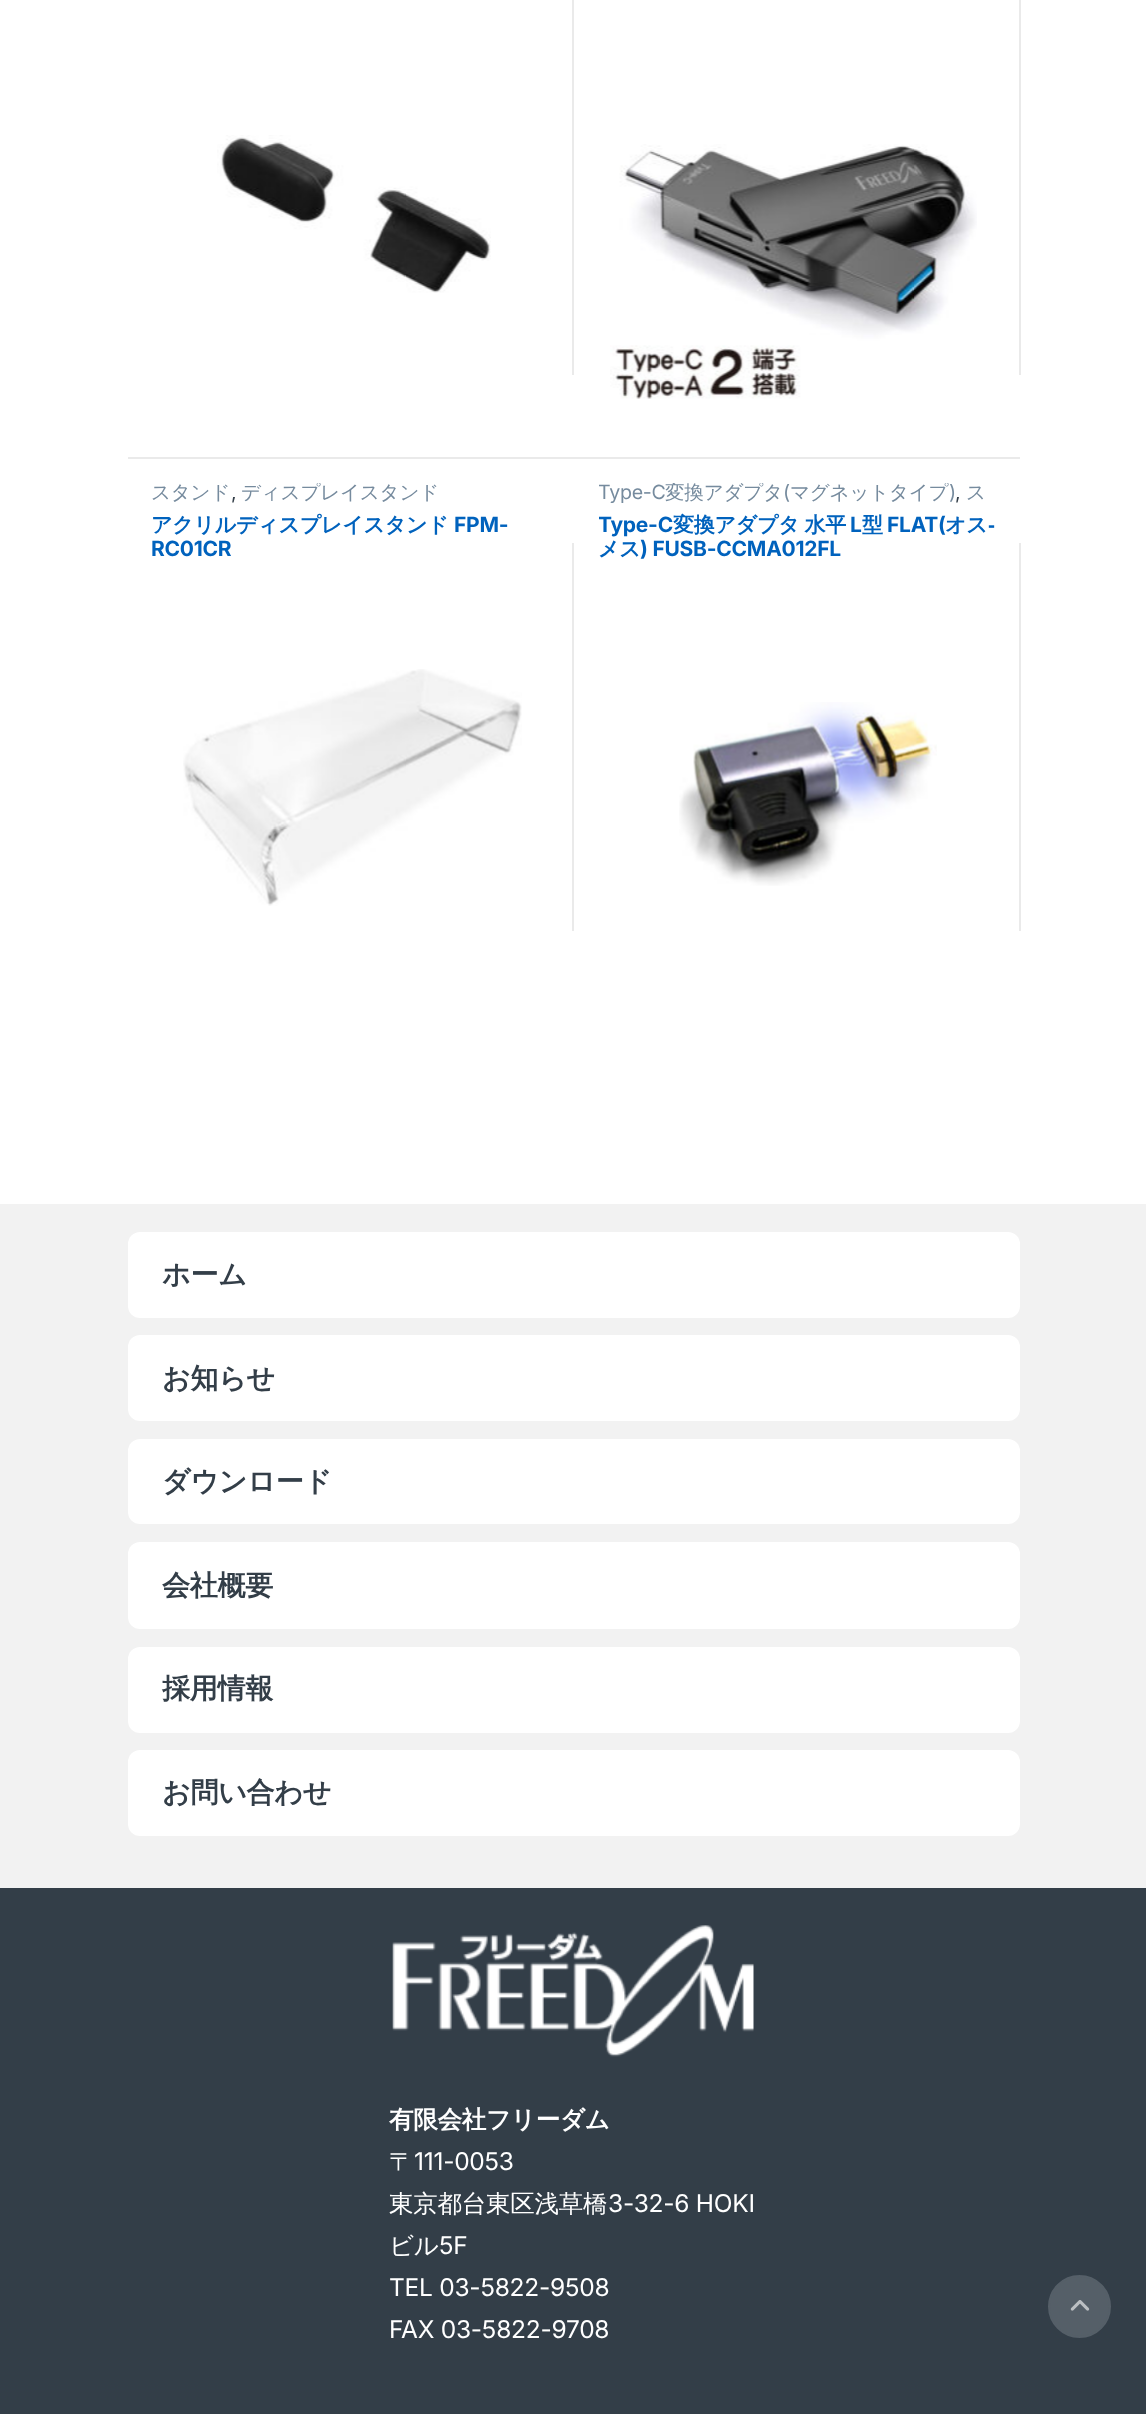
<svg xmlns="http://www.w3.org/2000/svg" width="1146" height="2414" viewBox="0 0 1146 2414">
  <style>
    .t1 { font: 500 19.6px WenQuanYi Zen Hei; letter-spacing: -0.25px; fill: #768b9e; }
    .t2 { font: 19.6px Inter; letter-spacing: -0.25px; fill: #333e48; }
    .t3 { font: bold 21px WenQuanYi Zen Hei; letter-spacing: -0.25px; fill: #0062bd; }
    .t4 { font: bold 21px Inter; letter-spacing: -0.25px; fill: #0062bd; }
    .t5 { font: 19.6px Inter; letter-spacing: -0.25px; fill: #768b9e; }
    .t6 { font: bold 21px Liberation Sans; letter-spacing: -0.25px; fill: #0062bd; }
    .t7 { font: bold 28px WenQuanYi Zen Hei; letter-spacing: -0.25px; fill: #333e48; }
    .t8 { font: bold 24.5px WenQuanYi Zen Hei; letter-spacing: -0.25px; fill: #fff; }
    .t9 { font: 500 24.5px WenQuanYi Zen Hei; letter-spacing: -0.25px; fill: #fff; }
    .t10 { font: 24.5px Inter; letter-spacing: -0.25px; fill: #fff; }
  </style>
  <defs>
    <clipPath id="clip1"><rect x="152" y="483" width="398" height="21"/></clipPath>
    <clipPath id="clip2"><rect x="599" y="483" width="397" height="21"/></clipPath>
    <clipPath id="clip3"><rect x="599" y="513" width="397" height="49"/></clipPath>
  </defs>
  <rect width="100%" height="100%" fill="#fff"/>
  <rect x="128" y="457" width="892" height="2" fill="#eaeaea"/>
  <image x="217" y="135" width="274" height="158" href="images/1.png"/>
  <rect x="572" y="0" width="2" height="375" fill="#eaeaea"/>
  <image x="610" y="144" width="367" height="255" href="images/2.png"/>
  <rect x="1019" y="0" width="2" height="375" fill="#eaeaea"/>
  <text x="151" y="499" class="t1">スタンド</text>
  <text x="231" y="499" class="t2">,</text>
  <g clip-path="url(#clip1)">
    <text x="241" y="499" class="t1">ディスプレイスタンド</text>
  </g>
  <text x="151" y="532" class="t3">アクリルディスプレイスタンド</text>
  <text x="454" y="532" class="t4">FPM-</text>
  <text x="151" y="556" class="t4">RC01CR</text>
  <image x="183" y="669" width="339" height="237" href="images/3.png"/>
  <rect x="572" y="543" width="2" height="388" fill="#eaeaea"/>
  <g clip-path="url(#clip2)">
    <text x="598" y="499" class="t5">Type-C</text>
    <text x="665" y="499" class="t1">変換アダプタ</text>
  </g>
  <text x="783" y="499" class="t5">(</text>
  <g clip-path="url(#clip2)">
    <text x="790" y="499" class="t1">マグネットタイプ</text>
  </g>
  <text x="949" y="499" class="t5">)</text>
  <text x="955" y="499" class="t2">,</text>
  <text x="966" y="499" class="t1">ス</text>
  <g clip-path="url(#clip3)">
    <text x="598" y="532" class="t4">Type-C</text>
  </g>
  <text x="673" y="532" word-spacing="-1" class="t3">変換アダプタ 水平</text>
  <text x="850" y="532" class="t4">L</text>
  <text x="862" y="532" class="t3">型</text>
  <text x="887" y="532" class="t4">FLAT(</text>
  <text x="945" y="532" class="t3">オス</text>
  <text x="988" y="532" class="t6">‐</text>
  <text x="598" y="556" class="t3">メス</text>
  <text x="640" y="556" class="t4">) FUSB-CCMA012FL</text>
  <image x="679" y="702" width="258" height="184" href="images/4.png"/>
  <rect x="1019" y="543" width="2" height="388" fill="#eaeaea"/>
  <rect x="0" y="1204" width="1146" height="684" fill="#f2f2f2"/>
  <rect x="128" y="1232" width="892" height="86" rx="12" fill="#fff"/>
  <text x="162" y="1284" class="t7">ホーム</text>
  <rect x="128" y="1335" width="892" height="86" rx="12" fill="#fff"/>
  <text x="162" y="1388" class="t7">お知らせ</text>
  <rect x="128" y="1439" width="892" height="85" rx="12" fill="#fff"/>
  <text x="162" y="1491" class="t7">ダウンロード</text>
  <rect x="128" y="1542" width="892" height="87" rx="12" fill="#fff"/>
  <text x="162" y="1595" class="t7">会社概要</text>
  <rect x="128" y="1647" width="892" height="86" rx="12" fill="#fff"/>
  <text x="162" y="1698" class="t7">採用情報</text>
  <rect x="128" y="1750" width="892" height="86" rx="12" fill="#fff"/>
  <text x="162" y="1802" class="t7">お問い合わせ</text>
  <rect x="0" y="1888" width="1146" height="526" fill="#333e48"/>
  <image x="392" y="1925" width="362" height="132" href="images/5.png"/>
  <text x="389" y="2128" class="t8">有限会社フリーダム</text>
  <text x="389" y="2170" class="t9">〒</text>
  <text x="414" y="2170" class="t10">111-0053</text>
  <text x="389" y="2212" class="t9">東京都台東区浅草橋</text>
  <text x="608" y="2212" class="t10">3-32-6 HOKI</text>
  <text x="389" y="2254" class="t9">ビル</text>
  <text x="439" y="2254" class="t10">5F</text>
  <text x="389" y="2296" class="t10">TEL 03-5822-9508</text>
  <text x="389" y="2338" class="t10">FAX 03-5822-9708</text>
  <circle cx="1079.5" cy="2306.5" r="30.5" fill="#555f68" stroke="#555f68" stroke-width="2"/>
  <image x="1070" y="2300" width="20" height="11" href="images/6.png"/>
</svg>
